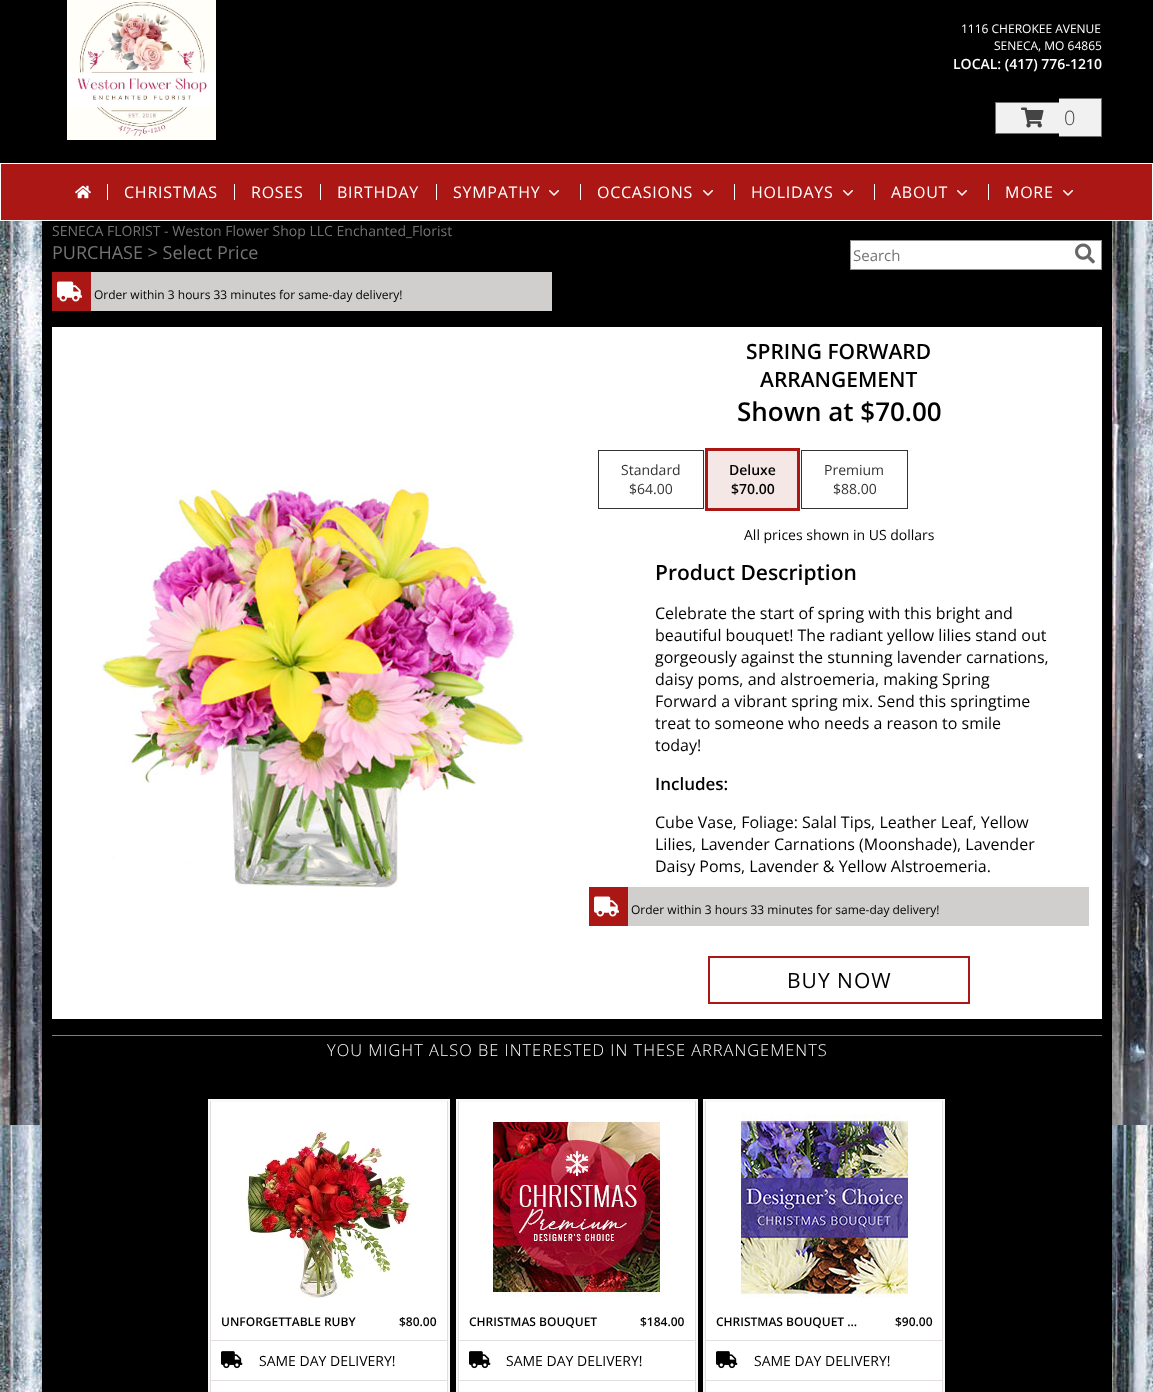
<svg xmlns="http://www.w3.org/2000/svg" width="1153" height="1392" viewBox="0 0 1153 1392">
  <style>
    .t1 { font: 12px Open Sans; fill: #fff; }
    .t2 { font: 600 14px Open Sans; fill: #fff; }
    .t3 { font: 300 20px Open Sans; fill: #444; }
    .t4 { font: 16px Open Sans; letter-spacing: 0.75px; fill: #fff; }
    .t5 { font: 14px Open Sans; fill: #757575; }
    .t6 { font: 18px Open Sans; fill: #757575; }
    .t7 { font: 15px Open Sans; fill: #757575; }
    .t8 { font: 12px Open Sans; fill: #000; }
    .t9 { font: 600 21px Open Sans; fill: #000; }
    .t10 { font: 600 26px Open Sans; fill: #000; }
    .t11 { font: 14px Open Sans; fill: #333; }
    .t12 { font: 600 14px Open Sans; fill: #000; }
    .t13 { font: 14px Open Sans; fill: #000; }
    .t14 { font: 16px Open Sans; fill: #000; }
    .t15 { font: 600 17px Open Sans; fill: #000; }
    .t16 { font: 21px Open Sans; letter-spacing: 1px; fill: #000; }
    .t17 { font: 300 16.4px Open Sans; letter-spacing: 1px; fill: #fff; }
    .t18 { font: 600 12px Open Sans; fill: #000; }
  </style>
  <rect width="100%" height="100%" fill="#fff"/>
  <image x="0" y="221" width="1153" height="1171" href="images/1.png"/>
  <rect x="42" y="221" width="1070" height="1171" fill="#000"/>
  <rect x="0" y="0" width="1153" height="163" fill="#000"/>
  <image x="67" y="0" width="149" height="140" href="images/2.png"/>
  <text x="961" y="33" class="t1">1116 CHEROKEE AVENUE</text>
  <text x="994" y="50" class="t1">SENECA, MO 64865</text>
  <text x="953" y="69" class="t2">LOCAL: (417) 776-1210</text>
  <rect x="996" y="103" width="63" height="30" fill="#f1f1f1"/>
  <rect x="995" y="102" width="64" height="1" fill="#6e6e6e"/>
  <rect x="995" y="133" width="64" height="1" fill="#6e6e6e"/>
  <rect x="995" y="102" width="1" height="32" fill="#6e6e6e"/>
  <rect x="1059" y="98" width="5" height="39" fill="#f1f1f1"/>
  <rect x="1059" y="98" width="43" height="1" fill="#6e6e6e"/>
  <rect x="1059" y="136" width="5" height="1" fill="#6e6e6e"/>
  <rect x="1064" y="99" width="37" height="37" fill="#f1f1f1"/>
  <rect x="1101" y="98" width="1" height="39" fill="#6e6e6e"/>
  <rect x="1064" y="136" width="38" height="1" fill="#6e6e6e"/>
  <image x="1021" y="107" width="23" height="21" href="images/3.png"/>
  <text x="1064" y="125" class="t3">0</text>
  <rect x="1" y="164" width="1151" height="56" fill="#aa1714"/>
  <image x="75" y="185" width="16" height="14" href="images/4.png"/>
  <rect x="107" y="184" width="1" height="16" fill="#fff"/>
  <text x="124" y="198" class="t4">CHRISTMAS</text>
  <rect x="234" y="184" width="1" height="16" fill="#fff"/>
  <text x="251" y="198" class="t4">ROSES</text>
  <rect x="320" y="184" width="1" height="16" fill="#fff"/>
  <text x="337" y="198" class="t4">BIRTHDAY</text>
  <rect x="436" y="184" width="1" height="16" fill="#fff"/>
  <text x="453" y="198" class="t4">SYMPATHY</text>
  <image x="549" y="190" width="10" height="6" href="images/5.png"/>
  <rect x="580" y="184" width="1" height="16" fill="#fff"/>
  <text x="597" y="198" class="t4">OCCASIONS</text>
  <image x="703" y="190" width="10" height="6" href="images/5.png"/>
  <rect x="734" y="184" width="1" height="16" fill="#fff"/>
  <text x="751" y="198" class="t4">HOLIDAYS</text>
  <image x="843" y="190" width="10" height="6" href="images/5.png"/>
  <rect x="874" y="184" width="1" height="16" fill="#fff"/>
  <text x="891" y="198" class="t4">ABOUT</text>
  <image x="957" y="190" width="10" height="6" href="images/5.png"/>
  <rect x="988" y="184" width="1" height="16" fill="#fff"/>
  <text x="1005" y="198" class="t4">MORE</text>
  <image x="1063" y="190" width="10" height="6" href="images/5.png"/>
  <text x="52" y="236" class="t5">SENECA FLORIST - Weston Flower Shop LLC Enchanted_Florist</text>
  <text x="52" y="259" class="t6">PURCHASE &gt; Select Price</text>
  <rect x="850.5" y="240.5" width="251" height="29" fill="#fff" stroke="#919191"/>
  <text x="853" y="261" class="t7">Search</text>
  <image x="1075" y="243" width="20" height="21" href="images/6.png"/>
  <rect x="91" y="272" width="461" height="39" fill="#d0cfcd"/>
  <rect x="52" y="272" width="39" height="39" fill="#aa1714"/>
  <image x="57" y="281" width="25" height="21" href="images/7.png"/>
  <text x="94" y="299" class="t8">Order within 3 hours 33 minutes for same-day delivery!</text>
  <rect x="52" y="327" width="1050" height="692" fill="#fff"/>
  <image x="102" y="487" width="424" height="401" href="images/8.png"/>
  <text x="746" y="359" class="t9">SPRING FORWARD</text>
  <text x="760" y="387" class="t9">ARRANGEMENT</text>
  <text x="737" y="421" class="t10">Shown at $70.00</text>
  <rect x="598.5" y="450.5" width="105" height="58" fill="none" stroke="#333"/>
  <text x="621" y="475" class="t11">Standard</text>
  <text x="629" y="494" class="t11">$64.00</text>
  <rect x="706.5" y="449.5" width="92" height="60" fill="none" stroke="#aa1714" stroke-width="3"/>
  <rect x="708" y="451" width="89" height="57" fill="#f6e7e7"/>
  <text x="729" y="475" class="t12">Deluxe</text>
  <text x="731" y="494" class="t12">$70.00</text>
  <rect x="801.5" y="450.5" width="106" height="58" fill="none" stroke="#333"/>
  <text x="824" y="475" class="t11">Premium</text>
  <text x="833" y="494" class="t11">$88.00</text>
  <text x="744" y="540" class="t13">All prices shown in US dollars</text>
  <text x="655" y="580" class="t9">Product Description</text>
  <text x="655" y="619" class="t14">Celebrate the start of spring with this bright and</text>
  <text x="655" y="641" class="t14">beautiful bouquet! The radiant yellow lilies stand out</text>
  <text x="655" y="663" class="t14">gorgeously against the stunning lavender carnations,</text>
  <text x="655" y="685" class="t14">daisy poms, and alstroemeria, making Spring</text>
  <text x="655" y="707" class="t14">Forward a vibrant spring mix. Send this springtime</text>
  <text x="655" y="729" class="t14">treat to someone who needs a reason to smile</text>
  <text x="655" y="751" class="t14">today!</text>
  <text x="655" y="790" class="t15">Includes:</text>
  <text x="655" y="828" class="t14">Cube Vase, Foliage: Salal Tips, Leather Leaf, Yellow</text>
  <text x="655" y="850" class="t14">Lilies, Lavender Carnations (Moonshade), Lavender</text>
  <text x="655" y="872" class="t14">Daisy Poms, Lavender &amp; Yellow Alstroemeria.</text>
  <rect x="628" y="887" width="461" height="39" fill="#d0cfcd"/>
  <rect x="589" y="887" width="39" height="39" fill="#aa1714"/>
  <image x="594" y="896" width="25" height="21" href="images/7.png"/>
  <text x="631" y="914" class="t8">Order within 3 hours 33 minutes for same-day delivery!</text>
  <rect x="709" y="957" width="260" height="46" fill="none" stroke="#aa1714" stroke-width="2"/>
  <text x="787" y="988" class="t16">BUY NOW</text>
  <rect x="52" y="1035" width="1050" height="1" fill="#808080"/>
  <text x="327" y="1056" class="t17">YOU MIGHT ALSO BE INTERESTED IN THESE ARRANGEMENTS</text>
  <rect x="208" y="1099" width="242" height="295" fill="#f9f9f9" filter="blur(0.5px)"/>
  <rect x="211" y="1102" width="236" height="290" fill="#fff"/>
  <rect x="447" y="1101" width="1" height="291" fill="#e2dedd"/>
  <rect x="210" y="1101" width="1" height="291" fill="#e2dedd"/>
  <image x="245" y="1131" width="166" height="167" href="images/9.png"/>
  <text x="221" y="1326" class="t18">UNFORGETTABLE RUBY</text>
  <text x="399" y="1326" class="t18">$80.00</text>
  <rect x="211" y="1340" width="236" height="1" fill="#e2dedd"/>
  <image x="221" y="1351" width="22" height="18" href="images/10.png"/>
  <text x="259" y="1366" class="t13">SAME DAY DELIVERY!</text>
  <rect x="211" y="1380" width="236" height="1" fill="#e2dedd"/>
  <rect x="456" y="1099" width="242" height="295" fill="#f9f9f9" filter="blur(0.5px)"/>
  <rect x="459" y="1102" width="236" height="290" fill="#fff"/>
  <rect x="695" y="1101" width="1" height="291" fill="#e2dedd"/>
  <rect x="458" y="1101" width="1" height="291" fill="#e2dedd"/>
  <image x="493" y="1121" width="167" height="176" href="images/11.png"/>
  <text x="469" y="1326" class="t18">CHRISTMAS BOUQUET</text>
  <text x="640" y="1326" class="t18">$184.00</text>
  <rect x="459" y="1340" width="236" height="1" fill="#e2dedd"/>
  <image x="469" y="1351" width="22" height="18" href="images/10.png"/>
  <text x="506" y="1366" class="t13">SAME DAY DELIVERY!</text>
  <rect x="459" y="1380" width="236" height="1" fill="#e2dedd"/>
  <rect x="703" y="1099" width="242" height="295" fill="#f9f9f9" filter="blur(0.5px)"/>
  <rect x="706" y="1102" width="236" height="290" fill="#fff"/>
  <rect x="942" y="1101" width="1" height="291" fill="#e2dedd"/>
  <rect x="705" y="1101" width="1" height="291" fill="#e2dedd"/>
  <image x="741" y="1114" width="167" height="184" href="images/12.png"/>
  <text x="716" y="1326" class="t18">CHRISTMAS BOUQUET …</text>
  <text x="895" y="1326" class="t18">$90.00</text>
  <rect x="706" y="1340" width="236" height="1" fill="#e2dedd"/>
  <image x="716" y="1351" width="22" height="18" href="images/10.png"/>
  <text x="754" y="1366" class="t13">SAME DAY DELIVERY!</text>
  <rect x="706" y="1380" width="236" height="1" fill="#e2dedd"/>
</svg>
